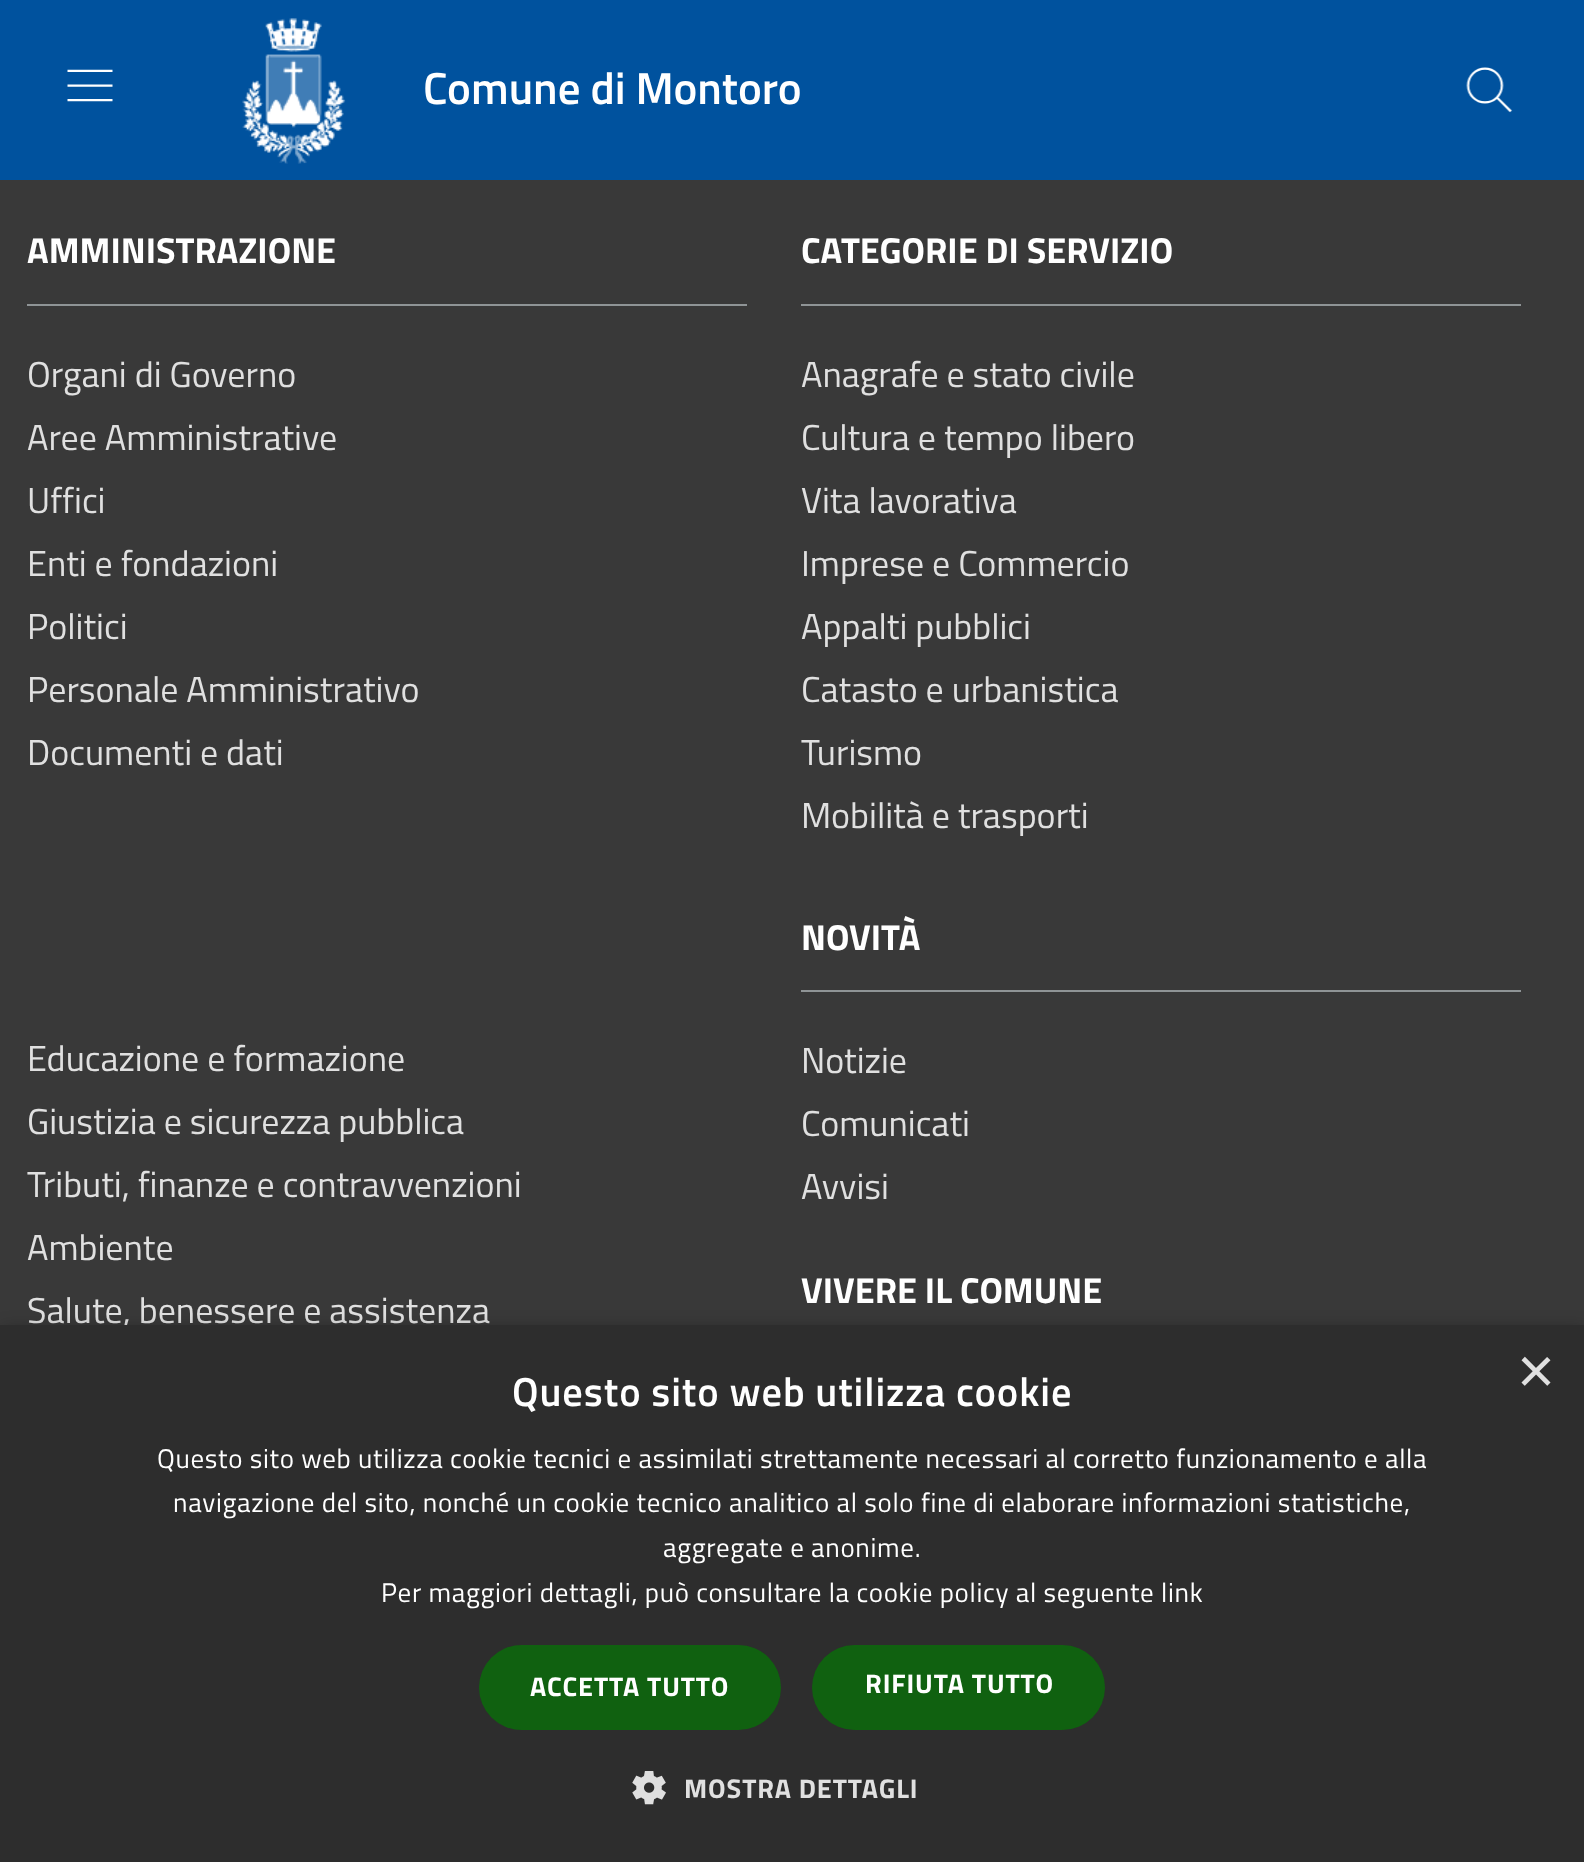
<svg xmlns="http://www.w3.org/2000/svg" width="1584" height="1862" viewBox="0 0 1584 1862">
  <style>
    .t1 { font: 600 45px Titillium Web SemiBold; fill: #fff; }
    .t2 { font: bold 36px Titillium Web; fill: #fff; }
    .t3 { font: 36px Titillium Web; fill: #e0e0e0; }
    .t4 { font: 65px Liberation Sans; fill: #e0e0e0; }
    .t5 { font: 600 40.5px Titillium Web SemiBold; letter-spacing: 0.9px; fill: #fff; }
    .t6 { font: 27px Titillium Web; letter-spacing: 0.67px; fill: #fff; }
    .t7 { font: bold 27px Titillium Web; letter-spacing: 0.9px; fill: #fff; }
    .t8 { font: bold 27px Titillium Web; letter-spacing: 0.9px; fill: #e0e0e0; }
  </style>
  <rect width="100%" height="100%" fill="#393939"/>
  <rect x="0" y="0" width="1584" height="180" fill="#00529e"/>
  <image x="67" y="69" width="46" height="33" href="images/1.png"/>
  <image x="242" y="18" width="104" height="146" href="images/2.png"/>
  <text x="423" y="104" class="t1">Comune di Montoro</text>
  <image x="1466" y="67" width="47" height="46" href="images/3.png"/>
  <rect x="27" y="304" width="720" height="2" fill="#8f9496"/>
  <text x="27" y="263" class="t2">AMMINISTRAZIONE</text>
  <text x="27" y="387" class="t3">Organi di Governo</text>
  <text x="27" y="450" class="t3">Aree Amministrative</text>
  <text x="27" y="513" class="t3">Uffici</text>
  <text x="27" y="576" class="t3">Enti e fondazioni</text>
  <text x="27" y="639" class="t3">Politici</text>
  <text x="27" y="702" class="t3">Personale Amministrativo</text>
  <text x="27" y="765" class="t3">Documenti e dati</text>
  <rect x="801" y="304" width="720" height="2" fill="#8f9496"/>
  <text x="801" y="263" class="t2">CATEGORIE DI SERVIZIO</text>
  <text x="801" y="387" class="t3">Anagrafe e stato civile</text>
  <text x="801" y="450" class="t3">Cultura e tempo libero</text>
  <text x="801" y="513" class="t3">Vita lavorativa</text>
  <text x="801" y="576" class="t3">Imprese e Commercio</text>
  <text x="801" y="639" class="t3">Appalti pubblici</text>
  <text x="801" y="702" class="t3">Catasto e urbanistica</text>
  <text x="801" y="765" class="t3">Turismo</text>
  <text x="801" y="828" class="t3">Mobilità e trasporti</text>
  <text x="27" y="1071" class="t3">Educazione e formazione</text>
  <text x="27" y="1134" class="t3">Giustizia e sicurezza pubblica</text>
  <text x="27" y="1197" class="t3">Tributi, finanze e contravvenzioni</text>
  <text x="27" y="1260" class="t3">Ambiente</text>
  <text x="27" y="1323" class="t3">Salute, benessere e assistenza</text>
  <rect x="801" y="990" width="720" height="2" fill="#8f9496"/>
  <text x="801" y="950" class="t2">NOVITÀ</text>
  <text x="801" y="1073" class="t3">Notizie</text>
  <text x="801" y="1136" class="t3">Comunicati</text>
  <text x="801" y="1199" class="t3">Avvisi</text>
  <text x="801" y="1303" class="t2">VIVERE IL COMUNE</text>
  <rect x="2" y="1330" width="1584" height="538" fill="#00000059" filter="blur(9px)"/>
  <rect x="0" y="1325" width="1584" height="537" fill="#2d2d2d"/>
  <text x="1517" y="1393" class="t4">×</text>
  <text x="512" y="1406" class="t5">Questo sito web utilizza cookie</text>
  <text x="157" y="1468" class="t6">Questo sito web utilizza cookie tecnici e assimilati strettamente necessari al corretto funzionamento e alla</text>
  <text x="173" y="1512" class="t6">navigazione del sito, nonché un cookie tecnico analitico al solo fine di elaborare informazioni statistiche,</text>
  <text x="663" y="1557" class="t6">aggregate e anonime.</text>
  <text x="381" y="1602" class="t6">Per maggiori dettagli, può consultare la cookie policy al seguente link</text>
  <rect x="479" y="1645" width="302" height="85" rx="42.5" fill="#106110"/>
  <text x="530" y="1696" class="t7">ACCETTA TUTTO</text>
  <rect x="812" y="1645" width="293" height="85" rx="42.5" fill="#106110"/>
  <text x="865" y="1693" class="t7">RIFIUTA TUTTO</text>
  <image x="632" y="1771" width="34" height="34" href="images/4.png"/>
  <text x="684" y="1798" class="t8">MOSTRA DETTAGLI</text>
</svg>
